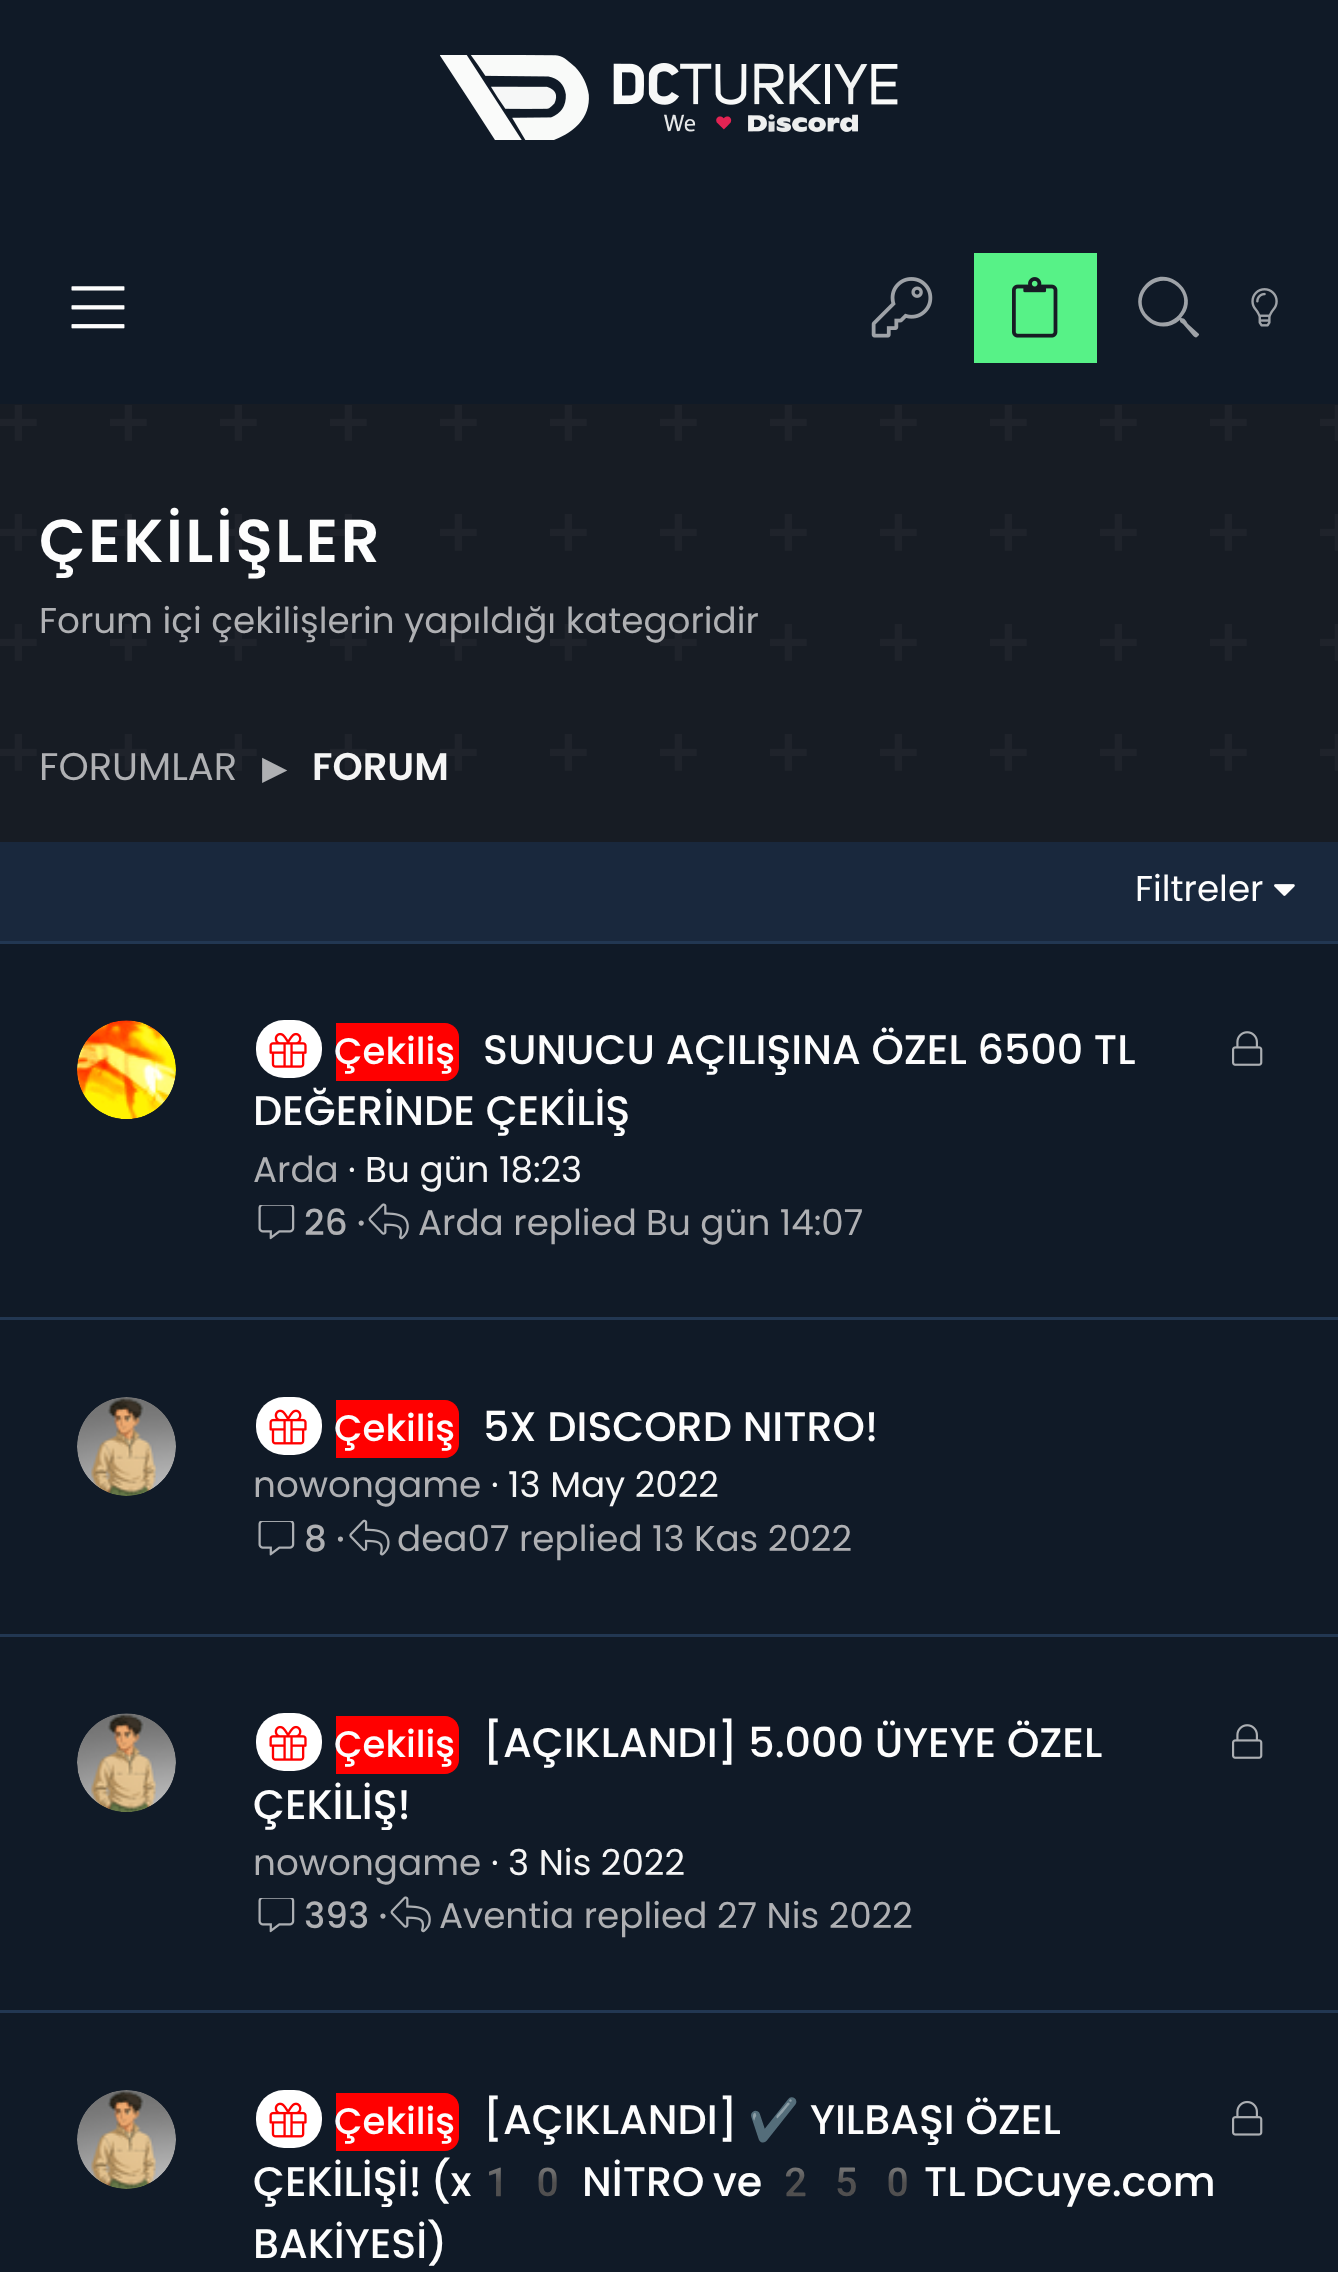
<svg xmlns="http://www.w3.org/2000/svg" width="1338" height="2272" viewBox="0 0 1338 2272">
  <style>
    .t1 { font: 600 60.5px Poppins; letter-spacing: 2.75px; fill: #fdfdfd; }
    .t2 { font: 35.75px Poppins; fill: #afb0b3; }
    .t3 { font: 38.5px Poppins; fill: #afb0b3; }
    .t4 { font: 33px DejaVu Sans; fill: #afb0b3; }
    .t5 { font: 600 38.5px Poppins; fill: #f5f5f5; }
    .t6 { font: 35.75px Poppins; fill: #fdfdfd; }
    .t7 { font: 500 37px Poppins; fill: #fdfdfd; }
    .t8 { font: 500 41.25px Poppins; fill: #fdfdfd; }
    .t9 { font: 35.75px Poppins; fill: #f5f5f5; }
    .t10 { font: 500 35.75px Poppins; fill: #afb0b3; }
    .t11 { font: 41.25px Noto Color Emoji; fill: #fdfdfd; }
  </style>
  <rect width="100%" height="100%" fill="#171c24"/>
  <rect x="0" y="0" width="1338" height="404" fill="#101a27"/>
  <image x="440" y="55" width="458" height="85" href="images/1.png"/>
  <image x="71" y="286" width="54" height="43" href="images/2.png"/>
  <image x="871" y="277" width="62" height="61" href="images/3.png"/>
  <rect x="974" y="253" width="123" height="110" fill="#57f287"/>
  <image x="1012" y="277" width="46" height="61" href="images/4.png"/>
  <path d="M1199 334V335L1197 337C1195 339 1191 333 1190 332L1183 324C1180 322 1180 322 1180 320C1156 341 1123 307 1146 284C1168 262 1203 295 1181 318C1185 318 1186 321 1188 324ZM1148 316C1168 336 1197 306 1178 287C1158 268 1129 297 1148 316Z" fill="#9ea2a7"/>
  <image x="1251" y="288" width="27" height="39" href="images/5.png"/>
  <image x="0" y="405" width="1338" height="366" href="images/6.png"/>
  <text x="39" y="562" class="t1">ÇEKİLİŞLER</text>
  <text x="39" y="633" class="t2">Forum içi çekilişlerin yapıldığı kategoridir</text>
  <text x="39" y="780" class="t3">FORUMLAR</text>
  <text x="262" y="779" class="t4">▶</text>
  <text x="312" y="780" class="t5">FORUM</text>
  <rect x="0" y="944" width="1338" height="1328" fill="#101a27"/>
  <rect x="0" y="842" width="1338" height="99" fill="#19283d"/>
  <text x="1135" y="901" class="t6">Filtreler</text>
  <image x="1274" y="884" width="21" height="12" href="images/7.png"/>
  <rect x="0" y="941" width="1338" height="3" fill="#223752"/>
  <image x="77" y="1020" width="99" height="99" href="images/8.png"/>
  <rect x="256" y="1020" width="66" height="58" rx="28" fill="#fff"/>
  <image x="269" y="1032" width="38" height="36" href="images/9.png"/>
  <path d="M336 1023H445C452.5 1023 459 1029.5 459 1037V1067C459 1074.5 452.5 1081 445 1081H336Z" fill="#f00"/>
  <text x="334" y="1064" class="t7">Çekiliş</text>
  <text x="483" y="1064" class="t8">SUNUCU AÇILIŞINA ÖZEL 6500 TL</text>
  <text x="253" y="1125" class="t8">DEĞERİNDE ÇEKİLİŞ</text>
  <image x="1232" y="1031" width="31" height="35" href="images/10.png"/>
  <text x="253" y="1182" class="t2">Arda</text>
  <text x="348" y="1182" class="t9">· Bu gün 18:23</text>
  <image x="258" y="1205" width="37" height="35" href="images/11.png"/>
  <text x="304" y="1235" class="t10">26 ·</text>
  <image x="368" y="1203" width="41" height="37" href="images/12.png"/>
  <text x="418" y="1235" class="t2">Arda replied</text>
  <text x="646" y="1235" class="t2">Bu gün 14:07</text>
  <rect x="0" y="1317" width="1338" height="3" fill="#223752"/>
  <image x="77" y="1397" width="99" height="99" href="images/13.png"/>
  <rect x="256" y="1397" width="66" height="58" rx="28" fill="#fff"/>
  <image x="269" y="1409" width="38" height="36" href="images/14.png"/>
  <path d="M336 1400H445C452.5 1400 459 1406.5 459 1414V1444C459 1451.5 452.5 1458 445 1458H336Z" fill="#f00"/>
  <text x="334" y="1441" class="t7">Çekiliş</text>
  <text x="483" y="1441" class="t8">5X DISCORD NITRO!</text>
  <text x="253" y="1497" class="t2">nowongame</text>
  <text x="491" y="1497" class="t9">· 13 May 2022</text>
  <image x="258" y="1521" width="37" height="35" href="images/15.png"/>
  <text x="304" y="1551" class="t10">8 ·</text>
  <image x="349" y="1519" width="41" height="37" href="images/16.png"/>
  <text x="397" y="1551" class="t2">dea07 replied</text>
  <text x="652" y="1551" class="t2">13 Kas 2022</text>
  <rect x="0" y="1634" width="1338" height="3" fill="#223752"/>
  <image x="77" y="1713" width="99" height="99" href="images/17.png"/>
  <rect x="256" y="1713" width="66" height="58" rx="28" fill="#fff"/>
  <image x="269" y="1725" width="38" height="36" href="images/9.png"/>
  <path d="M336 1716H445C452.5 1716 459 1722.5 459 1730V1760C459 1767.5 452.5 1774 445 1774H336Z" fill="#f00"/>
  <text x="334" y="1757" class="t7">Çekiliş</text>
  <text x="483" y="1757" class="t8">[AÇIKLANDI] 5.000 ÜYEYE ÖZEL</text>
  <text x="253" y="1819" class="t8">ÇEKİLİŞ!</text>
  <image x="1232" y="1724" width="31" height="35" href="images/10.png"/>
  <text x="253" y="1875" class="t2">nowongame</text>
  <text x="491" y="1875" class="t9">· 3 Nis 2022</text>
  <image x="258" y="1898" width="37" height="35" href="images/11.png"/>
  <text x="304" y="1928" class="t10">393 ·</text>
  <image x="390" y="1896" width="41" height="37" href="images/12.png"/>
  <text x="439" y="1928" class="t2">Aventia replied</text>
  <text x="717" y="1928" class="t2">27 Nis 2022</text>
  <rect x="0" y="2010" width="1338" height="3" fill="#223752"/>
  <image x="77" y="2090" width="99" height="99" href="images/13.png"/>
  <rect x="256" y="2090" width="66" height="58" rx="28" fill="#fff"/>
  <image x="269" y="2102" width="38" height="36" href="images/14.png"/>
  <path d="M336 2093H445C452.5 2093 459 2099.5 459 2107V2137C459 2144.5 452.5 2151 445 2151H336Z" fill="#f00"/>
  <text x="334" y="2134" class="t7">Çekiliş</text>
  <text x="483" y="2134" class="t8">[AÇIKLANDI]</text>
  <text x="748" y="2134" class="t11">✔️</text>
  <text x="810" y="2134" class="t8">YILBAŞI ÖZEL</text>
  <text x="253" y="2196" word-spacing="-2" class="t8">ÇEKİLİŞİ! (x</text>
  <text x="471" y="2196" class="t11">10</text>
  <text x="582" y="2196" word-spacing="-2" class="t8">NİTRO ve</text>
  <text x="770" y="2196" class="t11">250</text>
  <text x="924" y="2196" word-spacing="-2" class="t8">TL DCuye.com</text>
  <text x="253" y="2258" class="t8">BAKİYESİ)</text>
  <image x="1232" y="2100" width="31" height="36" href="images/18.png"/>
</svg>
